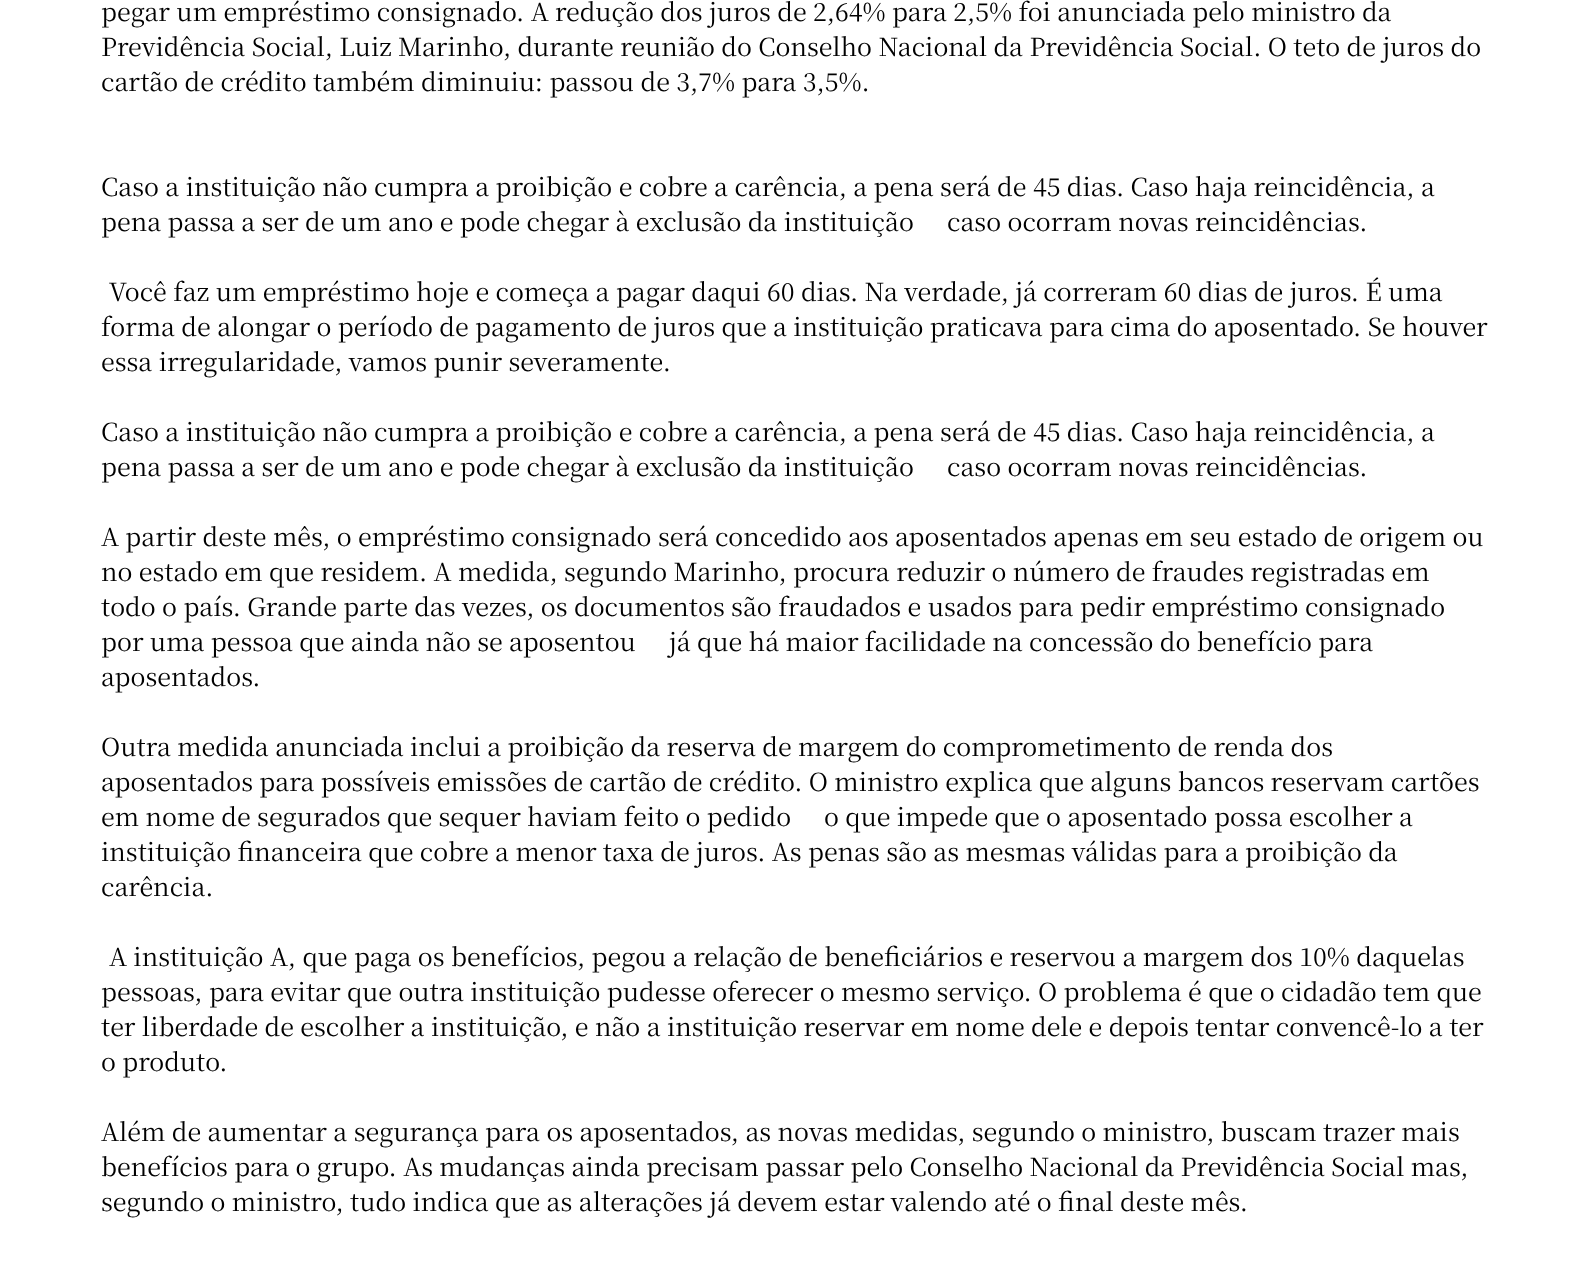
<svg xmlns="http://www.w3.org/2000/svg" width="1590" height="1267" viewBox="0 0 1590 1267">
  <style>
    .t1 { font: 25px Noto Serif SC; fill: #000; }
  </style>
  <rect width="100%" height="100%" fill="#fff"/>
  <text x="101" y="21" class="t1">pegar um empréstimo consignado. A redução dos juros de 2,64% para 2,5% foi anunciada pelo ministro da</text>
  <text x="101" y="56" class="t1">Previdência Social, Luiz Marinho, durante reunião do Conselho Nacional da Previdência Social. O teto de juros do</text>
  <text x="101" y="91" class="t1">cartão de crédito também diminuiu: passou de 3,7% para 3,5%.</text>
  <text x="101" y="196" class="t1">Caso a instituição não cumpra a proibição e cobre a carência, a pena será de 45 dias. Caso haja reincidência, a</text>
  <text x="101" y="231" class="t1">pena passa a ser de um ano e pode chegar à exclusão da instituição</text>
  <text x="947" y="231" class="t1">caso ocorram novas reincidências.</text>
  <text x="109" y="301" class="t1">Você faz um empréstimo hoje e começa a pagar daqui 60 dias. Na verdade, já correram 60 dias de juros. É uma</text>
  <text x="101" y="336" class="t1">forma de alongar o período de pagamento de juros que a instituição praticava para cima do aposentado. Se houver</text>
  <text x="101" y="371" class="t1">essa irregularidade, vamos punir severamente.</text>
  <text x="101" y="441" class="t1">Caso a instituição não cumpra a proibição e cobre a carência, a pena será de 45 dias. Caso haja reincidência, a</text>
  <text x="101" y="476" class="t1">pena passa a ser de um ano e pode chegar à exclusão da instituição</text>
  <text x="947" y="476" class="t1">caso ocorram novas reincidências.</text>
  <text x="101" y="546" class="t1">A partir deste mês, o empréstimo consignado será concedido aos aposentados apenas em seu estado de origem ou</text>
  <text x="101" y="581" class="t1">no estado em que residem. A medida, segundo Marinho, procura reduzir o número de fraudes registradas em</text>
  <text x="101" y="616" class="t1">todo o país. Grande parte das vezes, os documentos são fraudados e usados para pedir empréstimo consignado</text>
  <text x="101" y="651" class="t1">por uma pessoa que ainda não se aposentou</text>
  <text x="669" y="651" class="t1">já que há maior facilidade na concessão do benefício para</text>
  <text x="101" y="686" class="t1">aposentados.</text>
  <text x="101" y="756" class="t1">Outra medida anunciada inclui a proibição da reserva de margem do comprometimento de renda dos</text>
  <text x="101" y="791" class="t1">aposentados para possíveis emissões de cartão de crédito. O ministro explica que alguns bancos reservam cartões</text>
  <text x="101" y="826" class="t1">em nome de segurados que sequer haviam feito o pedido</text>
  <text x="824" y="826" class="t1">o que impede que o aposentado possa escolher a</text>
  <text x="101" y="861" class="t1">instituição financeira que cobre a menor taxa de juros. As penas são as mesmas válidas para a proibição da</text>
  <text x="101" y="896" class="t1">carência.</text>
  <text x="109" y="966" class="t1">A instituição A, que paga os benefícios, pegou a relação de beneficiários e reservou a margem dos 10% daquelas</text>
  <text x="101" y="1001" class="t1">pessoas, para evitar que outra instituição pudesse oferecer o mesmo serviço. O problema é que o cidadão tem que</text>
  <text x="101" y="1036" class="t1">ter liberdade de escolher a instituição, e não a instituição reservar em nome dele e depois tentar convencê-lo a ter</text>
  <text x="101" y="1071" class="t1">o produto.</text>
  <text x="101" y="1141" class="t1">Além de aumentar a segurança para os aposentados, as novas medidas, segundo o ministro, buscam trazer mais</text>
  <text x="101" y="1176" class="t1">benefícios para o grupo. As mudanças ainda precisam passar pelo Conselho Nacional da Previdência Social mas,</text>
  <text x="101" y="1211" class="t1">segundo o ministro, tudo indica que as alterações já devem estar valendo até o final deste mês.</text>
</svg>
